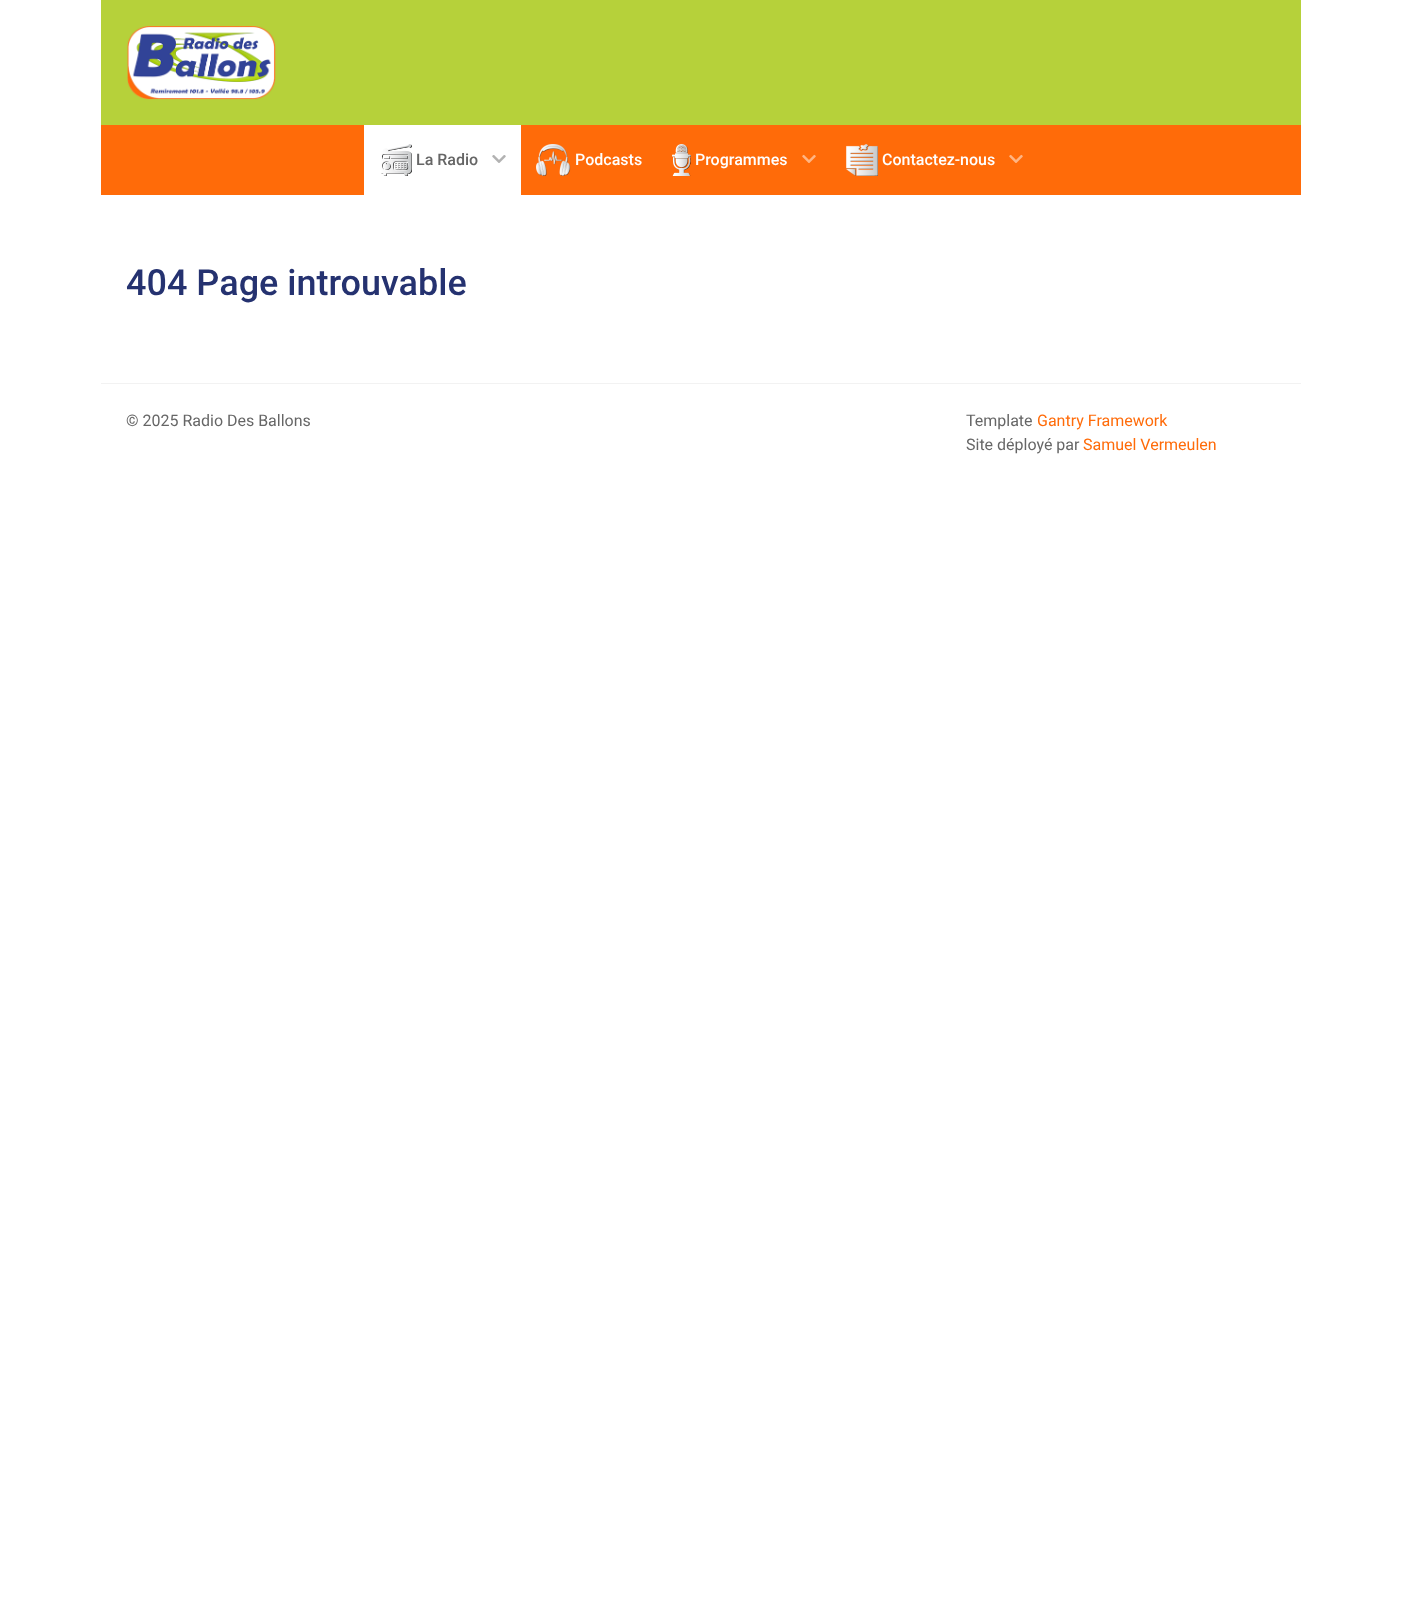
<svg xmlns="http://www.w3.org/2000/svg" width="1402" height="1610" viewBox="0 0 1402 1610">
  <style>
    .t1 { font: 500 16px Roboto; fill: #666; }
    .t2 { font: 500 16px Roboto; fill: #fff; }
    .t3 { font: 500 36px Roboto; fill: #253270; }
    .t4 { font: 16px Roboto; fill: #666; }
    .t5 { font: 16px Roboto; fill: #ff6b09; }
  </style>
  <rect width="100%" height="100%" fill="#fff"/>
  <rect x="101" y="0" width="1200" height="125" fill="#b6d13a"/>
  <image x="127" y="26" width="149" height="74" href="images/1.png"/>
  <rect x="101" y="125" width="1200" height="70" fill="#ff6b09"/>
  <rect x="364" y="125" width="157" height="70" fill="#fff"/>
  <image x="381" y="144" width="31" height="32" href="images/2.png"/>
  <text x="416" y="165" class="t1">La Radio</text>
  <image x="492" y="155" width="14" height="8" href="images/3.png"/>
  <image x="536" y="144" width="35" height="32" href="images/4.png"/>
  <text x="575" y="165" class="t2">Podcasts</text>
  <image x="672" y="144" width="19" height="32" href="images/5.png"/>
  <text x="695" y="165" class="t2">Programmes</text>
  <image x="802" y="154" width="14" height="9" href="images/6.png"/>
  <image x="846" y="144" width="32" height="32" href="images/7.png"/>
  <text x="882" y="165" class="t2">Contactez-nous</text>
  <image x="1009" y="154" width="14" height="9" href="images/6.png"/>
  <text x="126" y="295" class="t3">404 Page introuvable</text>
  <rect x="101" y="383" width="1200" height="1" fill="#f2f2f2"/>
  <text x="126" y="426" class="t4">© 2025 Radio Des Ballons</text>
  <text x="966" y="426" class="t4">Template</text>
  <text x="1037" y="426" class="t5">Gantry Framework</text>
  <text x="966" y="450" class="t4">Site déployé par</text>
  <text x="1083" y="450" class="t5">Samuel Vermeulen</text>
</svg>
